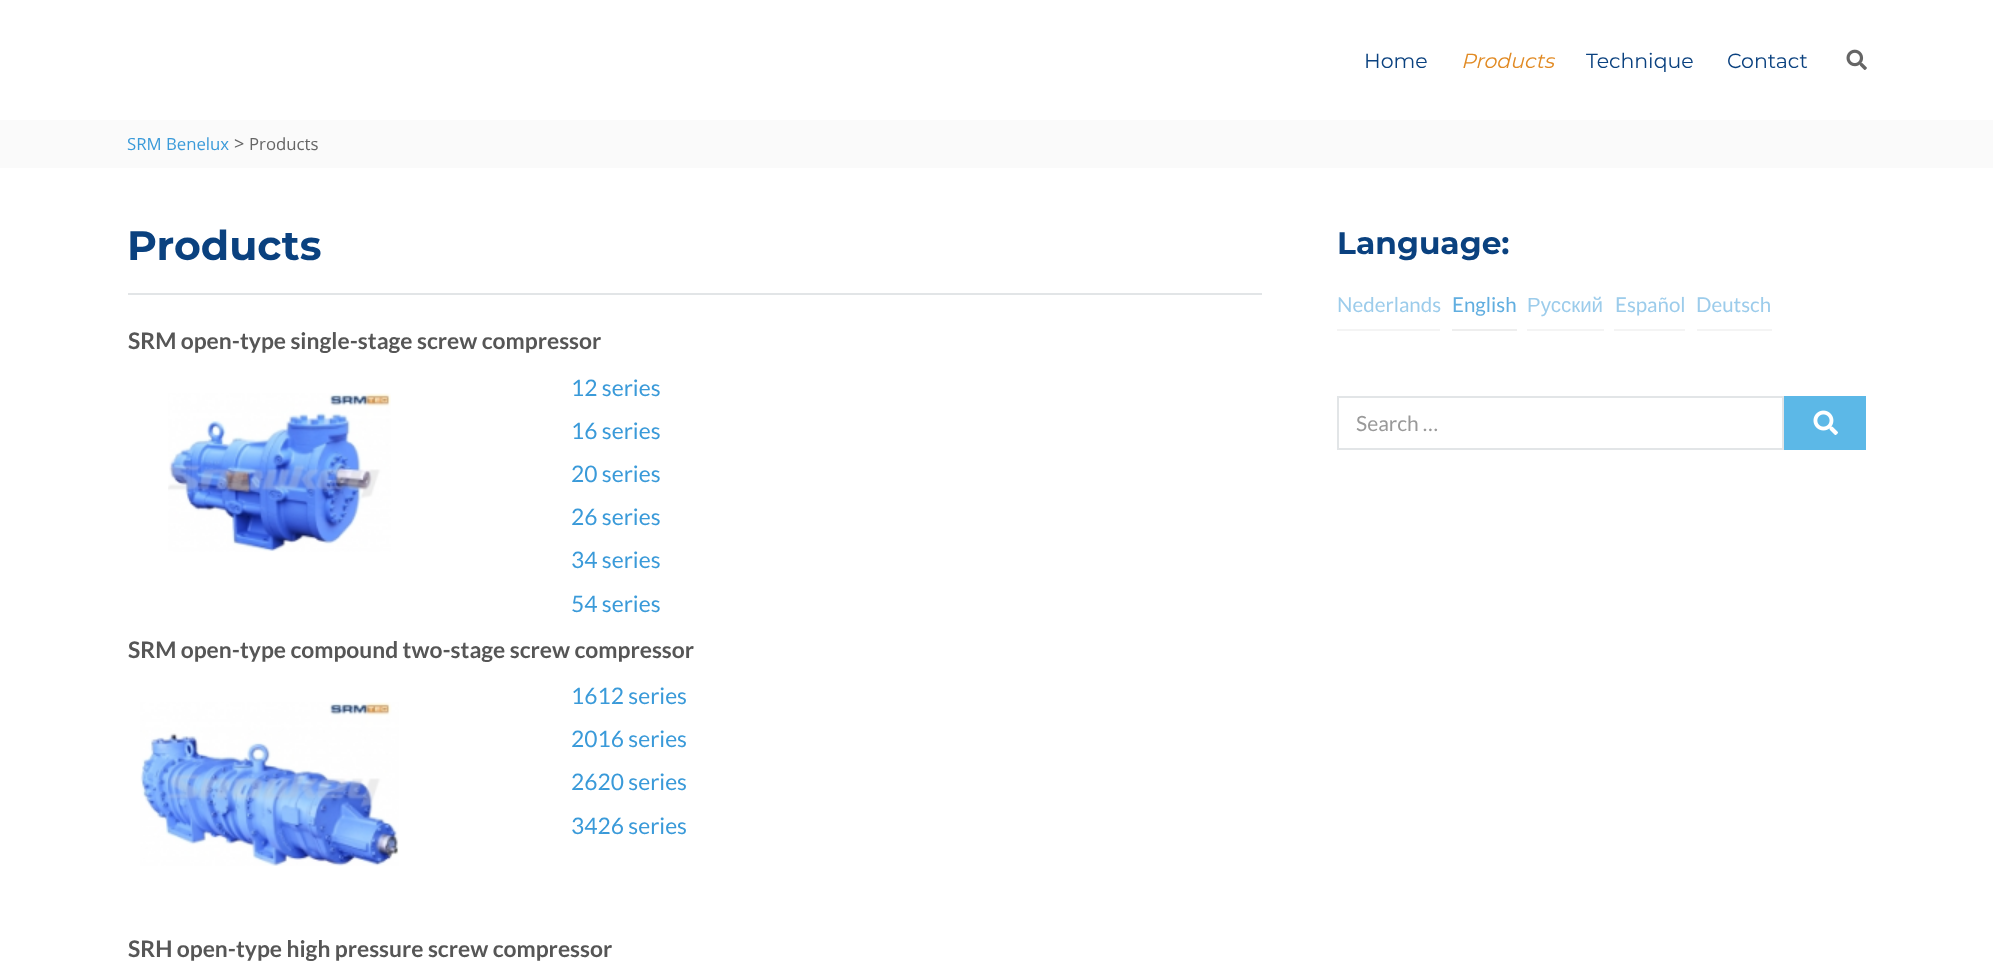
<svg xmlns="http://www.w3.org/2000/svg" width="1993" height="962" viewBox="0 0 1993 962">
  <style>
    .t1 { font: 20.5px Montserrat; fill: #0a417f; }
    .t2 { font: italic 20.5px Montserrat; fill: #e18a23; }
    .t3 { font: 16.75px Open Sans; fill: #3a9ad9; }
    .t4 { font: 18px Open Sans; fill: #656565; }
    .t5 { font: 16.75px Open Sans; fill: #656565; }
    .t6 { font: bold 41px Montserrat; fill: #0a417f; }
    .t7 { font: bold 22.8px Lato; fill: #565656; }
    .t8 { font: 22.8px Lato; fill: #3a9ad9; }
    .t9 { font: bold 31.25px Montserrat; fill: #0a417f; }
    .t10 { font: 20.5px Lato; fill: #9ccceb; }
    .t11 { font: 20.5px Lato; fill: #61aee0; }
    .t12 { font: 20.5px Liberation Sans; fill: #9ccceb; }
    .t13 { font: 21px Lato; fill: #999; }
  </style>
  <rect width="100%" height="100%" fill="#fff"/>
  <text x="1364" y="68" class="t1">Home</text>
  <text x="1461" y="68" class="t2">Products</text>
  <text x="1586" y="68" class="t1">Technique</text>
  <text x="1727" y="68" class="t1">Contact</text>
  <image x="1846" y="49" width="21" height="21" href="images/1.png"/>
  <rect x="0" y="120" width="1993" height="48" fill="#fafafa"/>
  <text x="127" y="150" class="t3">SRM Benelux</text>
  <text x="234" y="150" class="t4">&gt;</text>
  <text x="249" y="150" class="t5">Products</text>
  <text x="127" y="260" class="t6">Products</text>
  <rect x="128" y="293" width="1134" height="2" fill="#e2e5e7"/>
  <text x="128" y="349" class="t7">SRM open-type single-stage screw compressor</text>
  <image x="168" y="393" width="223" height="159" href="images/2.png"/>
  <text x="571" y="396" class="t8">12 series</text>
  <text x="571" y="439" class="t8">16 series</text>
  <text x="571" y="482" class="t8">20 series</text>
  <text x="571" y="525" class="t8">26 series</text>
  <text x="571" y="568" class="t8">34 series</text>
  <text x="571" y="612" class="t8">54 series</text>
  <text x="128" y="658" class="t7">SRM open-type compound two-stage screw compressor</text>
  <image x="140" y="702" width="259" height="164" href="images/3.png"/>
  <text x="571" y="704" class="t8">1612 series</text>
  <text x="571" y="747" class="t8">2016 series</text>
  <text x="571" y="790" class="t8">2620 series</text>
  <text x="571" y="834" class="t8">3426 series</text>
  <text x="128" y="957" class="t7">SRH open-type high pressure screw compressor</text>
  <text x="1337" y="254" class="t9">Language:</text>
  <text x="1337" y="312" class="t10">Nederlands</text>
  <rect x="1337" y="329" width="103" height="2" fill="#f4f4f4"/>
  <text x="1452" y="312" class="t11">English</text>
  <rect x="1452" y="329" width="65" height="2" fill="#eee"/>
  <text x="1527" y="312" class="t12">Русский</text>
  <rect x="1527" y="329" width="77" height="2" fill="#f4f4f4"/>
  <text x="1615" y="312" class="t10">Español</text>
  <rect x="1614" y="329" width="71" height="2" fill="#f4f4f4"/>
  <text x="1696" y="312" class="t10">Deutsch</text>
  <rect x="1697" y="329" width="75" height="2" fill="#f4f4f4"/>
  <rect x="1338" y="397" width="445" height="52" fill="none" stroke="#e2e5e7" stroke-width="2"/>
  <text x="1356" y="431" class="t13">Search …</text>
  <rect x="1784" y="396" width="82" height="54" fill="#5cb8e7"/>
  <image x="1813" y="410" width="25" height="25" href="images/4.png"/>
</svg>
